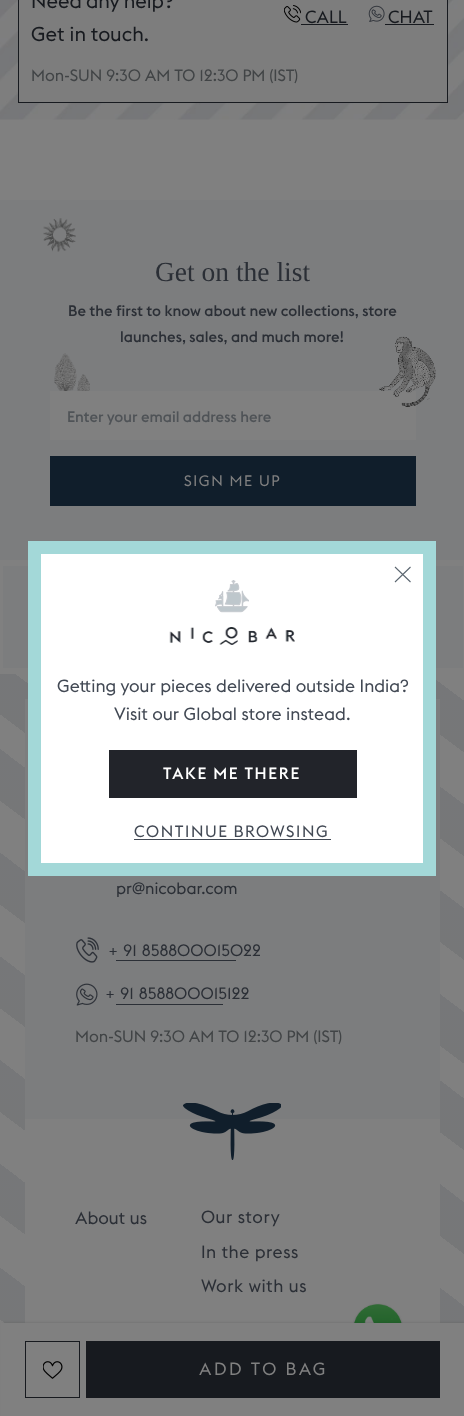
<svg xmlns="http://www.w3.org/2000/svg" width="464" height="1416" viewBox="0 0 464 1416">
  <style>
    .t1 { font: 20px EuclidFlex; fill: #171a1f; }
    .t2 { font: 17.5px EuclidFlex; fill: #171a1f; }
    .t3 { font: 16.25px EuclidFlex; fill: #414446; }
    .t4 { font: 17.5px EuclidFlex; letter-spacing: 2.5px; fill: #808080; }
    .t5 { font: 27.5px Liberation Serif; fill: #2b2f36; }
    .t6 { font: 500 15px EuclidFlex; fill: #2b2f36; }
    .t7 { font: 500 15px EuclidFlex; fill: #4f5357; }
    .t8 { font: 15px EuclidFlex; letter-spacing: 1.5px; fill: #808080; }
    .t9 { font: 16.25px EuclidFlex; fill: #2b2f36; }
    .t10 { font: 17.5px EuclidFlex; fill: #2b2f36; }
    .t11 { font: 17.5px EuclidFlex; letter-spacing: 0.5px; fill: #2b2f36; }
    .t12 { font: 17.5px EuclidFlex; fill: #424954; }
    .t13 { font: 500 16.25px EuclidFlex; letter-spacing: 1.6px; fill: #fff; }
    .t14 { font: 16.25px EuclidFlex; letter-spacing: 1.6px; fill: #424954; }
  </style>
  <defs>
    <linearGradient id="g1" gradientUnits="userSpaceOnUse" x1="-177" y1="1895" x2="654" y2="792"><stop offset="0" stop-color="#767778"/><stop offset="0.03" stop-color="#767779"/><stop offset="0.03" stop-color="#808080"/><stop offset="0.06" stop-color="#808080"/><stop offset="0.06" stop-color="#767778"/><stop offset="0.09" stop-color="#767779"/><stop offset="0.09" stop-color="#808080"/><stop offset="0.12" stop-color="#808080"/><stop offset="0.12" stop-color="#767778"/><stop offset="0.15" stop-color="#767779"/><stop offset="0.15" stop-color="#808080"/><stop offset="0.18" stop-color="#808080"/><stop offset="0.18" stop-color="#767778"/><stop offset="0.21" stop-color="#767779"/><stop offset="0.21" stop-color="#808080"/><stop offset="0.24" stop-color="#808080"/><stop offset="0.24" stop-color="#767778"/><stop offset="0.27" stop-color="#767779"/><stop offset="0.27" stop-color="#808080"/><stop offset="0.29" stop-color="#808080"/><stop offset="0.29" stop-color="#767778"/><stop offset="0.32" stop-color="#767779"/><stop offset="0.32" stop-color="#808080"/><stop offset="0.35" stop-color="#808080"/><stop offset="0.35" stop-color="#767778"/><stop offset="0.38" stop-color="#767779"/><stop offset="0.38" stop-color="#808080"/><stop offset="0.41" stop-color="#808080"/><stop offset="0.41" stop-color="#767778"/><stop offset="0.44" stop-color="#767779"/><stop offset="0.44" stop-color="#808080"/><stop offset="0.47" stop-color="#808080"/><stop offset="0.47" stop-color="#767778"/><stop offset="0.5" stop-color="#767779"/><stop offset="0.5" stop-color="#808080"/><stop offset="0.53" stop-color="#808080"/><stop offset="0.53" stop-color="#767778"/><stop offset="0.56" stop-color="#767779"/><stop offset="0.56" stop-color="#808080"/><stop offset="0.59" stop-color="#808080"/><stop offset="0.59" stop-color="#767778"/><stop offset="0.62" stop-color="#767779"/><stop offset="0.62" stop-color="#808080"/><stop offset="0.65" stop-color="#808080"/><stop offset="0.65" stop-color="#767778"/><stop offset="0.68" stop-color="#767779"/><stop offset="0.68" stop-color="#808080"/><stop offset="0.71" stop-color="#808080"/><stop offset="0.71" stop-color="#767778"/><stop offset="0.74" stop-color="#767779"/><stop offset="0.74" stop-color="#808080"/><stop offset="0.76" stop-color="#808080"/><stop offset="0.76" stop-color="#767778"/><stop offset="0.79" stop-color="#767779"/><stop offset="0.79" stop-color="#808080"/><stop offset="0.82" stop-color="#808080"/><stop offset="0.82" stop-color="#767778"/><stop offset="0.85" stop-color="#767779"/><stop offset="0.85" stop-color="#808080"/><stop offset="0.88" stop-color="#808080"/><stop offset="0.88" stop-color="#767778"/><stop offset="0.91" stop-color="#767779"/><stop offset="0.91" stop-color="#808080"/><stop offset="0.94" stop-color="#808080"/><stop offset="0.94" stop-color="#767778"/><stop offset="0.97" stop-color="#767779"/><stop offset="0.97" stop-color="#808080"/><stop offset="1" stop-color="#808080"/></linearGradient>
  </defs>
  <rect width="100%" height="100%" fill="#808080"/>
  <image x="0" y="0" width="464" height="120" href="images/1.png"/>
  <rect x="18.5" y="-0.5" width="429" height="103" fill="#7d7d7d" stroke="#171a1f"/>
  <text x="31" y="8" word-spacing="-1" class="t1">Need any help?</text>
  <text x="31" y="41" class="t1">Get in touch.</text>
  <image x="284" y="5" width="17" height="18" href="images/2.png"/>
  <text x="305" y="23" class="t2">CALL</text>
  <rect x="301" y="24" width="47" height="1" fill="#171a1f"/>
  <image x="368" y="5" width="17" height="17" href="images/3.png"/>
  <text x="388" y="23" class="t2">CHAT</text>
  <rect x="385" y="24" width="49" height="1" fill="#171a1f"/>
  <text x="31" y="81" word-spacing="-0.25" class="t3">Mon-SUN 9:30 AM TO 12:30 PM (IST)</text>
  <rect x="0" y="674" width="464" height="649" fill="url(#g1)"/>
  <rect x="25" y="1119" width="415" height="204" fill="#808080"/>
  <image x="353" y="1303" width="50" height="20" href="images/14.png"/>
  <rect x="3" y="1323" width="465" height="93" fill="#00000029" filter="blur(1.5px)"/>
  <rect x="1" y="1323" width="463" height="93" fill="#808080"/>
  <rect x="25.5" y="1341.5" width="54" height="56" fill="none" stroke="#171a1f"/>
  <image x="43" y="1361" width="20" height="18" href="images/4.png"/>
  <rect x="86" y="1341" width="354" height="57" fill="#171a1f"/>
  <text x="199" y="1375" class="t4">ADD TO BAG</text>
  <rect x="0" y="200" width="464" height="360" fill="#7c7d7e"/>
  <image x="43" y="218" width="33" height="34" href="images/5.png"/>
  <image x="54" y="353" width="23" height="38" href="images/6.png"/>
  <image x="77" y="374" width="13" height="17" href="images/7.png"/>
  <text x="155" y="281" class="t5">Get on the list</text>
  <text x="68" y="316" class="t6">Be the first to know about new collections, store</text>
  <text x="120" y="342" class="t6">launches, sales, and much more!</text>
  <rect x="50" y="391" width="366" height="49" fill="#808080"/>
  <image x="379" y="336" width="57" height="71" href="images/8.png"/>
  <text x="67" y="422" class="t7">Enter your email address here</text>
  <rect x="50" y="456" width="366" height="50" fill="#101e2b"/>
  <text x="184" y="486" class="t8">SIGN ME UP</text>
  <rect x="3" y="566" width="25" height="102" fill="#7c7d7e"/>
  <rect x="436" y="566" width="27" height="102" fill="#7c7d7e"/>
  <rect x="25" y="699" width="415" height="420" fill="#7c7d7e"/>
  <text x="116" y="894" class="t9">pr@nicobar.com</text>
  <image x="76" y="937" width="23" height="26" href="images/9.png"/>
  <text x="108" y="956" word-spacing="1" class="t9">+ 91 858800015022</text>
  <rect x="116" y="960" width="120" height="1" fill="#2b2f36"/>
  <image x="76" y="983" width="22" height="23" href="images/10.png"/>
  <text x="105" y="999" word-spacing="1" class="t9">+ 91 858800015122</text>
  <rect x="116" y="1004" width="107" height="1" fill="#2b2f36"/>
  <text x="75" y="1042" word-spacing="-0.25" class="t3">Mon-SUN 9:30 AM TO 12:30 PM (IST)</text>
  <image x="183" y="1103" width="98" height="57" href="images/11.png"/>
  <text x="75" y="1224" class="t10">About us</text>
  <text x="201" y="1223" class="t11">Our story</text>
  <text x="201" y="1258" class="t11">In the press</text>
  <text x="201" y="1292" class="t11">Work with us</text>
  <rect x="34.5" y="547.5" width="395" height="322" fill="#fff" stroke="#a3d8d8" stroke-width="13"/>
  <path d="M410.5 567L395 582M410.5 582L395 567" fill="none" stroke="#5b6670" stroke-width="1.1"/>
  <image x="215" y="580" width="34" height="33" href="images/12.png"/>
  <image x="169" y="627" width="126" height="18" href="images/13.png"/>
  <text x="57" y="692" class="t12">Getting your pieces delivered outside India?</text>
  <text x="114" y="720" class="t12">Visit our Global store instead.</text>
  <rect x="109" y="750" width="248" height="48" fill="#22242a"/>
  <text x="163" y="779" class="t13">TAKE ME THERE</text>
  <text x="134" y="837" word-spacing="-1" class="t14">CONTINUE BROWSING</text>
  <rect x="134" y="839" width="197" height="1" fill="#424954"/>
</svg>
